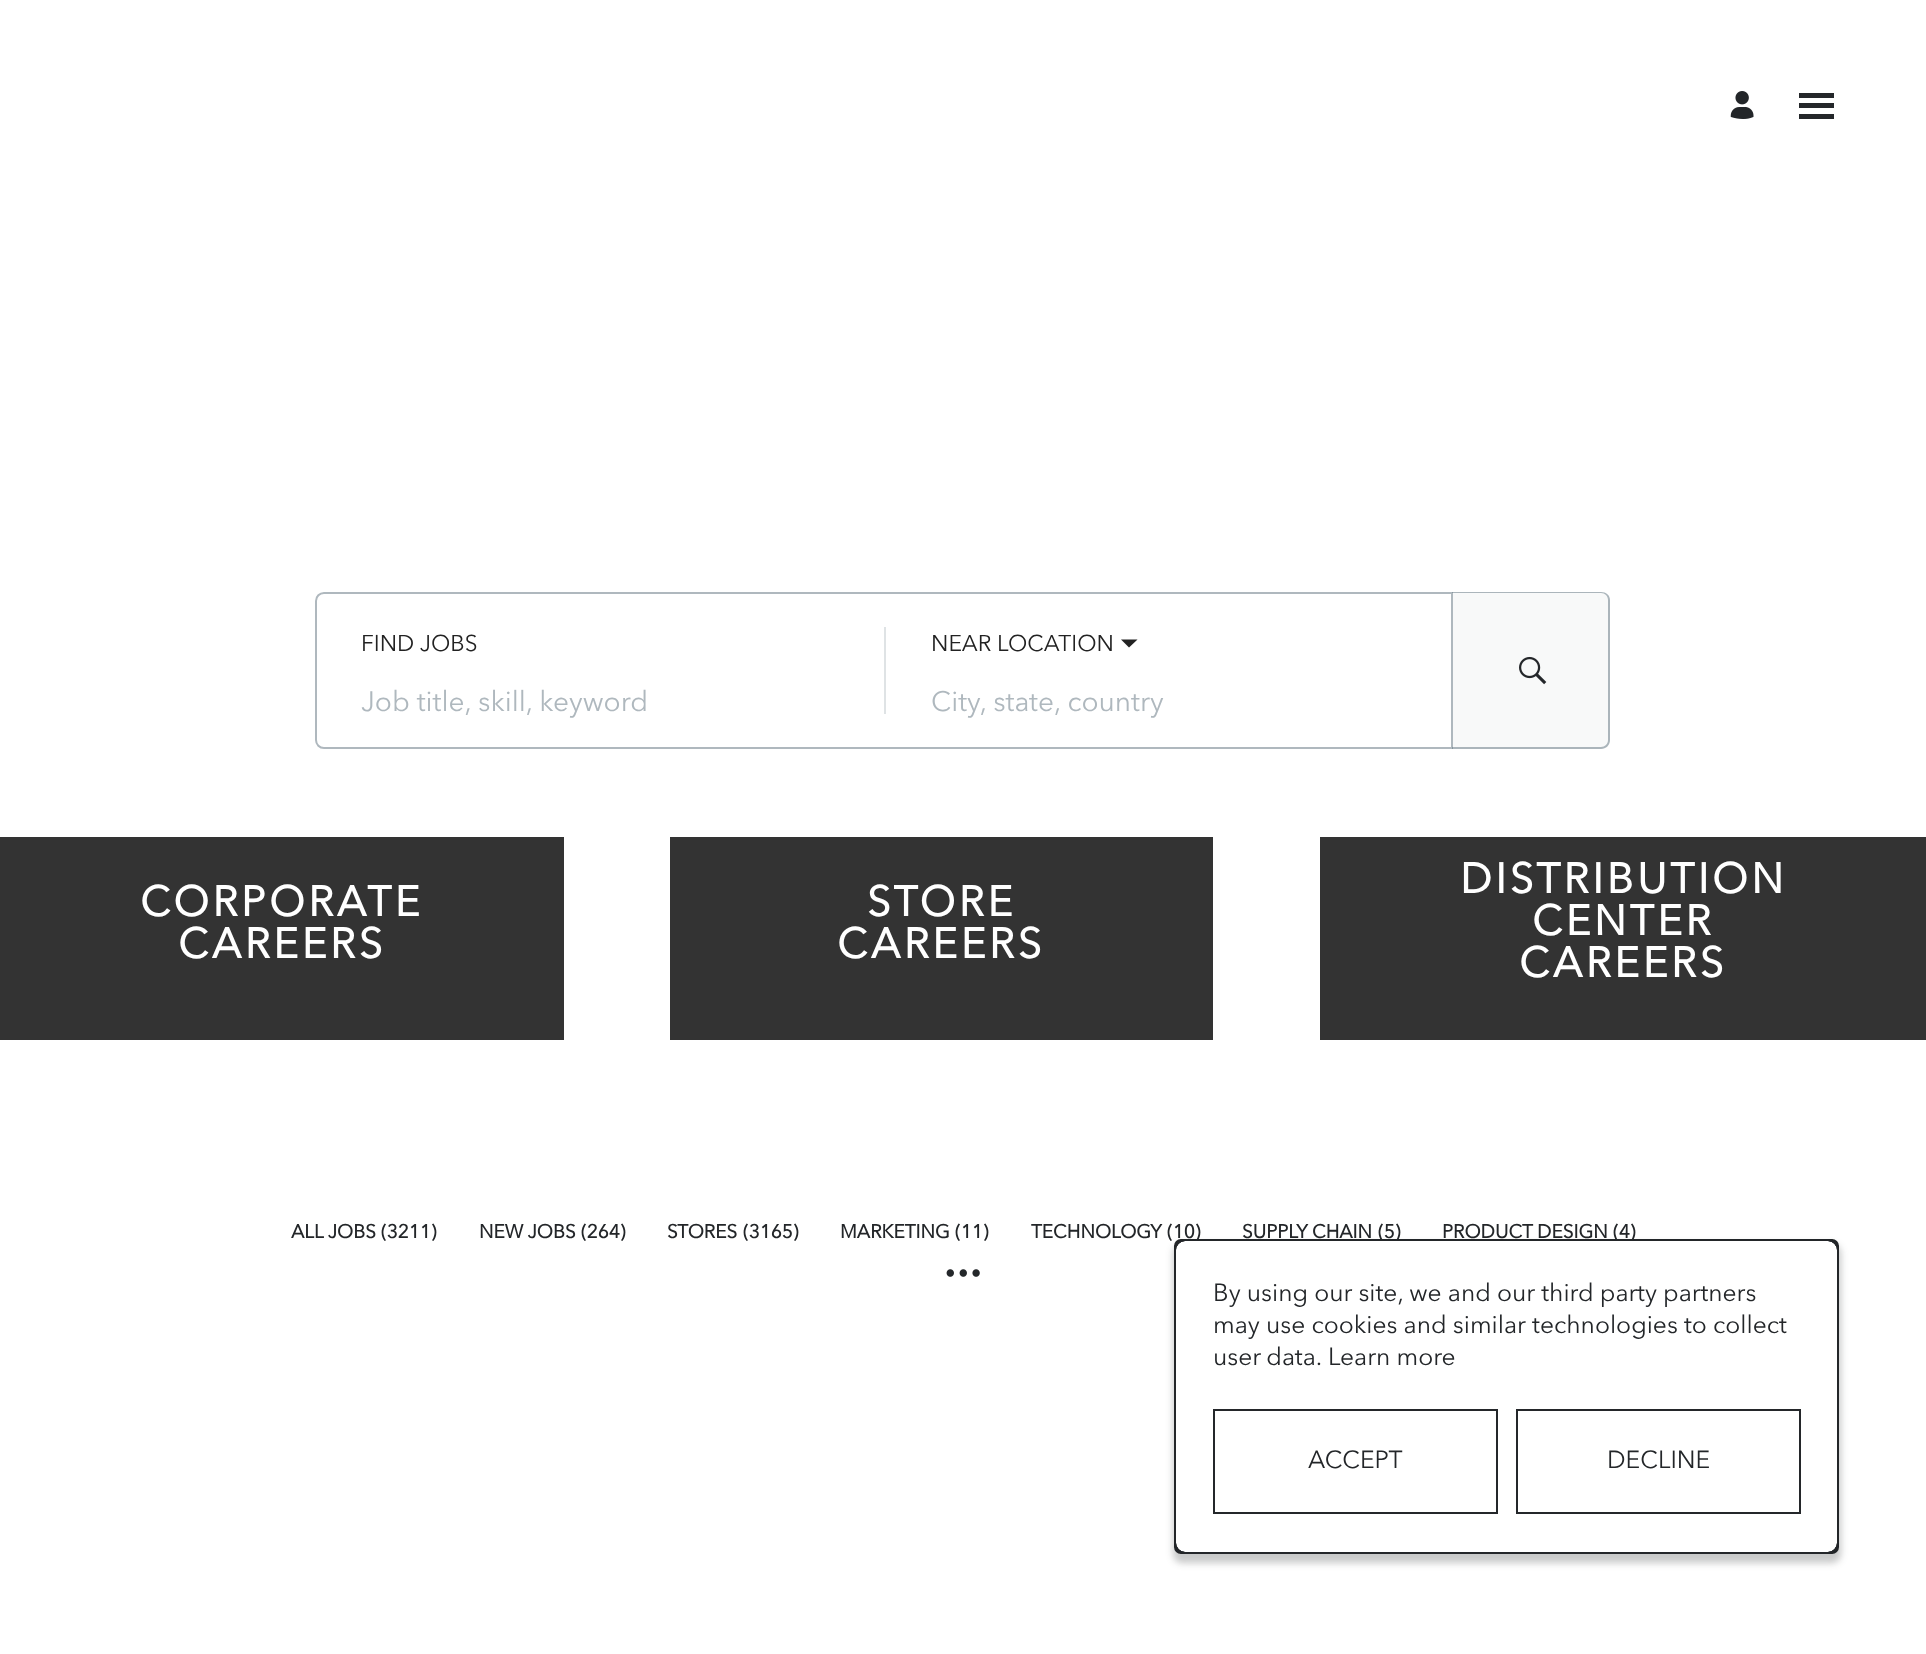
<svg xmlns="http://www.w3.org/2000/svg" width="1926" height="1654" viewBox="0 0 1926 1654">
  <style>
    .t1 { font: 22.75px 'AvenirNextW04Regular'; fill: #222; }
    .t2 { font: 28px 'AvenirNextW04Regular'; fill: #afb8be; }
    .t3 { font: bold 42px 'AvenirNextW04Regular'; letter-spacing: 3.5px; fill: #fff; }
    .t4 { font: bold 19px 'AvenirNextW04Regular'; fill: #232629; }
    .t5 { font: 24.6px 'AvenirNextW04Regular'; fill: #232629; }
  </style>
  <rect width="100%" height="100%" fill="#fff"/>
  <image x="1730" y="91" width="24" height="28" href="images/1.png"/>
  <rect x="1799" y="93" width="35" height="5" fill="#24272a"/>
  <rect x="1799" y="103" width="35" height="5" fill="#24272a"/>
  <rect x="1799" y="114" width="35" height="5" fill="#24272a"/>
  <path d="M324 593H1452V748H324C319.5 748 316 744.5 316 740V601C316 596.5 319.5 593 324 593Z" fill="none" stroke="#afb8be" stroke-width="2"/>
  <text x="361" y="651" class="t1">FIND JOBS</text>
  <text x="361" y="711" class="t2">Job title, skill, keyword</text>
  <rect x="884" y="627" width="2" height="87" fill="#dfe3e5"/>
  <text x="931" y="651" class="t1">NEAR LOCATION</text>
  <path d="M1129 647.5L1121 639.5H1137.5Z" fill="#222"/>
  <text x="931" y="711" class="t2">City, state, country</text>
  <path d="M1453 592H1601C1606 592 1610 596 1610 601V740C1610 745 1606 749 1601 749H1453Z" fill="#f8f9f9"/>
  <path d="M1452 592H1601C1606 592 1610 595 1610 600V740C1610 745 1606 749 1601 749H1452ZM1452 593H1601C1605 593 1608 596 1608 600V740C1608 744 1605 747 1601 747H1452Z" fill="#5e717d80" fill-rule="evenodd"/>
  <image x="1519" y="656" width="28" height="29" href="images/2.png"/>
  <rect x="0" y="837" width="564" height="203" fill="#333"/>
  <text x="140" y="916" class="t3">CORPORATE</text>
  <text x="178" y="958" class="t3">CAREERS</text>
  <rect x="670" y="837" width="543" height="203" fill="#333"/>
  <text x="867" y="916" class="t3">STORE</text>
  <text x="837" y="958" class="t3">CAREERS</text>
  <rect x="1320" y="837" width="606" height="203" fill="#333"/>
  <text x="1460" y="893" class="t3">DISTRIBUTION</text>
  <text x="1532" y="935" class="t3">CENTER</text>
  <text x="1519" y="977" class="t3">CAREERS</text>
  <text x="291" y="1238" class="t4">ALL JOBS</text>
  <text x="381" y="1238" class="t4">(3211)</text>
  <text x="479" y="1238" class="t4">NEW JOBS</text>
  <text x="581" y="1238" class="t4">(264)</text>
  <text x="667" y="1238" class="t4">STORES</text>
  <text x="743" y="1238" class="t4">(3165)</text>
  <text x="840" y="1238" class="t4">MARKETING</text>
  <text x="955" y="1238" class="t4">(11)</text>
  <text x="1031" y="1238" class="t4">TECHNOLOGY</text>
  <text x="1167" y="1238" class="t4">(10)</text>
  <text x="1242" y="1238" class="t4">SUPPLY CHAIN</text>
  <text x="1378" y="1238" class="t4">(5)</text>
  <text x="1442" y="1238" class="t4">PRODUCT DESIGN</text>
  <text x="1613" y="1238" class="t4">(4)</text>
  <image x="946" y="1269" width="34" height="8" href="images/3.png"/>
  <rect x="1173" y="1244" width="668" height="319" rx="9" fill="#23262940" filter="blur(3.5px)"/>
  <rect x="1175" y="1240" width="663" height="313" rx="6" fill="#fff" stroke="#232629" stroke-width="2"/>
  <rect x="1175" y="1240" width="663" height="313" rx="10" fill="none" stroke="#232629" stroke-width="2"/>
  <rect x="1175" y="1240" width="663" height="313" rx="10" fill="none" stroke="#232629" stroke-width="2"/>
  <rect x="1175" y="1240" width="663" height="313" rx="10" fill="none" stroke="#232629" stroke-width="2"/>
  <text x="1213" y="1301" class="t5">By using our site, we and our third party partners</text>
  <text x="1213" y="1333" class="t5">may use cookies and similar technologies to collect</text>
  <text x="1213" y="1365" word-spacing="-1" class="t5">user data.</text>
  <text x="1328" y="1365" class="t5">Learn more</text>
  <rect x="1214" y="1410" width="283" height="103" fill="none" stroke="#24272a" stroke-width="2"/>
  <text x="1308" y="1468" class="t5">ACCEPT</text>
  <rect x="1517" y="1410" width="283" height="103" fill="none" stroke="#24272a" stroke-width="2"/>
  <text x="1607" y="1468" class="t5">DECLINE</text>
</svg>
